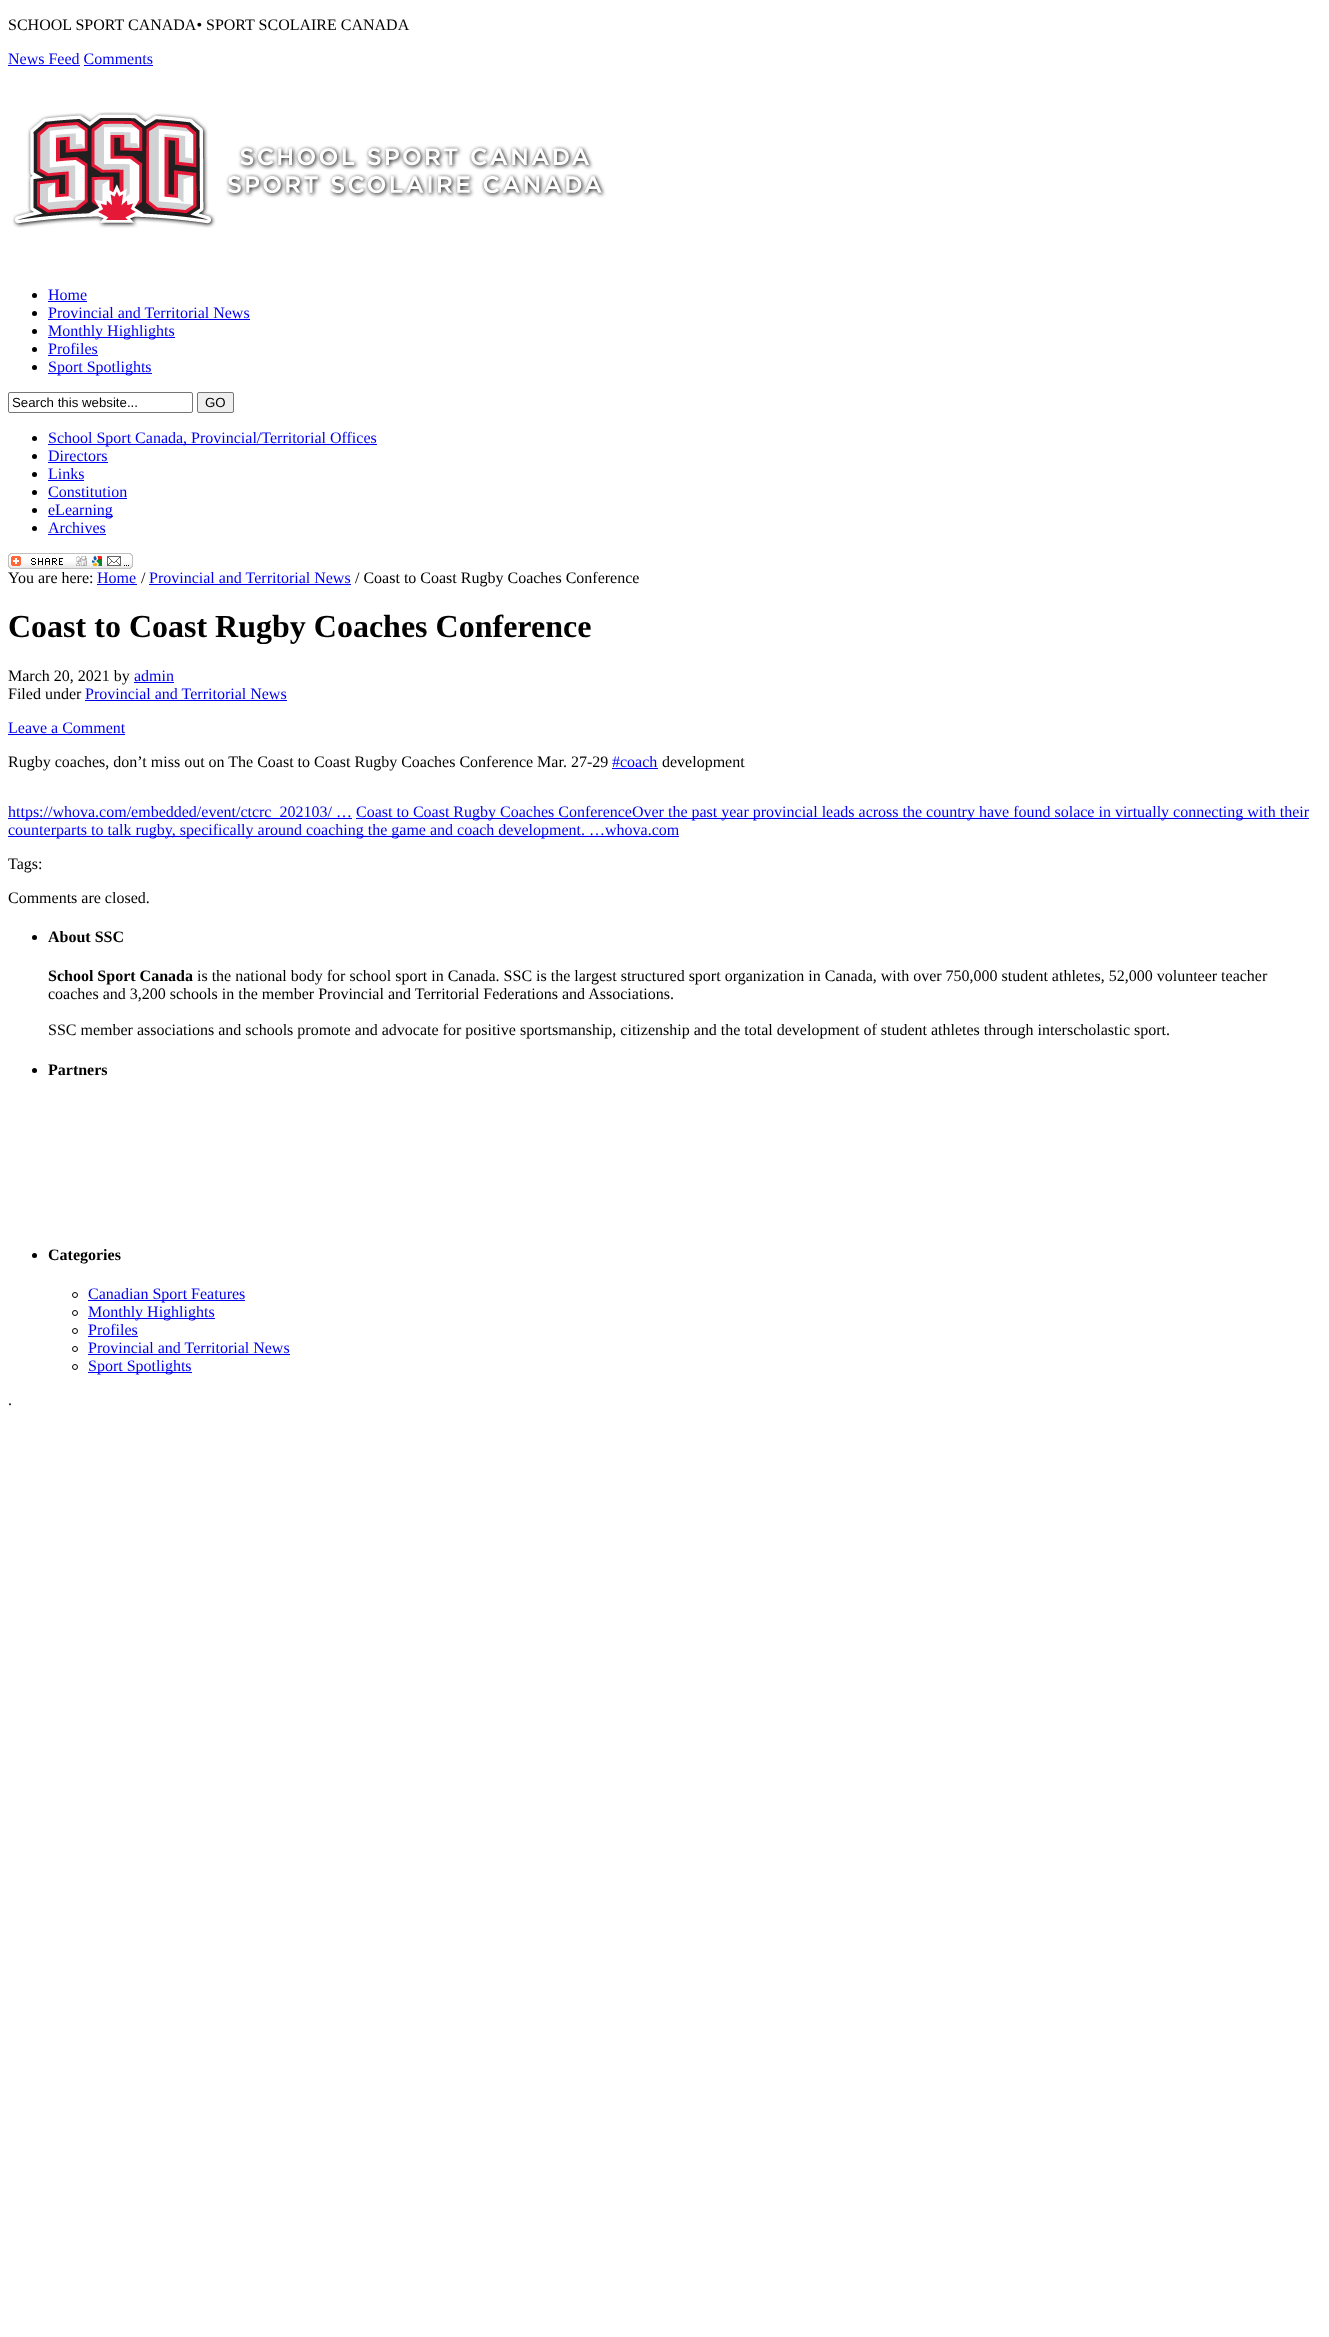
<svg xmlns="http://www.w3.org/2000/svg" width="1329" height="2337" viewBox="0 0 1329 2337">
  <style>
    .t1 { font: 16px Liberation Serif; fill: #000; }
    .t2 { font: 16px Liberation Serif; fill: #00e; }
    .t3 { font: 13.25px Liberation Sans; fill: #000; }
    .t4 { font: bold 32px Liberation Serif; fill: #000; }
    .t5 { font: bold 16px Liberation Serif; fill: #000; }
  </style>
  <rect width="100%" height="100%" fill="#fff"/>
  <text x="8" y="30" class="t1">SCHOOL SPORT CANADA• SPORT SCOLAIRE CANADA</text>
  <text x="8" y="64" class="t2">News Feed Comments</text>
  <rect x="8" y="65" width="72" height="1" fill="#00e"/>
  <rect x="84" y="65" width="69" height="1" fill="#00e"/>
  <image x="12" y="112" width="594" height="116" href="images/1.png"/>
  <circle cx="34.5" cy="295.5" r="2.5" fill="#000"/>
  <text x="48" y="300" class="t2">Home</text>
  <rect x="48" y="301" width="39" height="1" fill="#00e"/>
  <circle cx="34.5" cy="313.5" r="2.5" fill="#000"/>
  <text x="48" y="318" class="t2">Provincial and Territorial News</text>
  <rect x="48" y="319" width="202" height="1" fill="#00e"/>
  <circle cx="34.5" cy="331.5" r="2.5" fill="#000"/>
  <rect x="48" y="337" width="127" height="1" fill="#00e"/>
  <text x="48" y="336" class="t2">Monthly Highlights</text>
  <circle cx="34.5" cy="349.5" r="2.5" fill="#000"/>
  <text x="48" y="354" class="t2">Profiles</text>
  <rect x="48" y="355" width="50" height="1" fill="#00e"/>
  <circle cx="34.5" cy="367.5" r="2.5" fill="#000"/>
  <rect x="48" y="373" width="104" height="1" fill="#00e"/>
  <text x="48" y="372" class="t2">Sport Spotlights</text>
  <rect x="8.5" y="392.5" width="184" height="20" rx="1.5" fill="none" stroke="#767676"/>
  <text x="12" y="407" class="t3">Search this website...</text>
  <rect x="197.5" y="392.5" width="36" height="20" rx="1.5" fill="#efefef" stroke="#767676"/>
  <text x="205" y="407" class="t3">GO</text>
  <circle cx="34.5" cy="438.5" r="2.5" fill="#000"/>
  <rect x="48" y="444" width="329" height="1" fill="#00e"/>
  <text x="48" y="443" class="t2">School Sport Canada, Provincial/Territorial Offices</text>
  <circle cx="34.5" cy="456.5" r="2.5" fill="#000"/>
  <text x="48" y="461" class="t2">Directors</text>
  <rect x="48" y="462" width="60" height="1" fill="#00e"/>
  <circle cx="34.5" cy="474.5" r="2.5" fill="#000"/>
  <text x="48" y="479" class="t2">Links</text>
  <rect x="48" y="480" width="36" height="1" fill="#00e"/>
  <circle cx="34.5" cy="492.5" r="2.5" fill="#000"/>
  <text x="48" y="497" class="t2">Constitution</text>
  <rect x="48" y="498" width="79" height="1" fill="#00e"/>
  <circle cx="34.5" cy="510.5" r="2.5" fill="#000"/>
  <rect x="48" y="516" width="65" height="1" fill="#00e"/>
  <text x="48" y="515" class="t2">eLearning</text>
  <circle cx="34.5" cy="528.5" r="2.5" fill="#000"/>
  <text x="48" y="533" class="t2">Archives</text>
  <rect x="48" y="534" width="58" height="1" fill="#00e"/>
  <image x="8" y="553" width="125" height="16" href="images/2.png"/>
  <text x="8" y="583" class="t1">You are here:</text>
  <text x="97" y="583" class="t2">Home</text>
  <rect x="97" y="584" width="40" height="1" fill="#00e"/>
  <text x="141" y="583" class="t1">/</text>
  <text x="149" y="583" class="t2">Provincial and Territorial News</text>
  <rect x="149" y="584" width="202" height="1" fill="#00e"/>
  <text x="355" y="583" class="t1">/ Coast to Coast Rugby Coaches Conference</text>
  <text x="8" y="637" class="t4">Coast to Coast Rugby Coaches Conference</text>
  <text x="8" y="681" class="t1">March 20, 2021 by</text>
  <text x="134" y="681" class="t2">admin</text>
  <rect x="134" y="682" width="40" height="1" fill="#00e"/>
  <text x="8" y="699" class="t1">Filed under</text>
  <text x="85" y="699" class="t2">Provincial and Territorial News</text>
  <rect x="85" y="700" width="202" height="1" fill="#00e"/>
  <text x="8" y="733" class="t2">Leave a Comment</text>
  <rect x="8" y="734" width="117" height="1" fill="#00e"/>
  <text x="8" y="767" class="t1">Rugby coaches, don’t miss out on The Coast to Coast Rugby Coaches Conference Mar. 27-29</text>
  <text x="612" y="767" class="t2">#coach</text>
  <rect x="612" y="768" width="46" height="1" fill="#00e"/>
  <text x="662" y="767" class="t1">development</text>
  <rect x="8" y="818" width="344" height="1" fill="#00e"/>
  <text x="8" y="817" class="t2">https://whova.com/embedded/event/ctcrc_202103/ …</text>
  <rect x="356" y="818" width="953" height="1" fill="#00e"/>
  <text x="356" y="817" class="t2">Coast to Coast Rugby Coaches ConferenceOver the past year provincial leads across the country have found solace in virtually connecting with their</text>
  <rect x="8" y="836" width="671" height="1" fill="#00e"/>
  <text x="8" y="835" class="t2">counterparts to talk rugby, specifically around coaching the game and coach development. …whova.com</text>
  <text x="8" y="869" class="t1">Tags:</text>
  <text x="8" y="903" class="t1">Comments are closed.</text>
  <circle cx="34.5" cy="937.5" r="2.5" fill="#000"/>
  <text x="48" y="942" class="t5">About SSC</text>
  <text x="48" y="981" class="t5">School Sport Canada</text>
  <text x="197" y="981" class="t1">is the national body for school sport in Canada. SSC is the largest structured sport organization in Canada, with over 750,000 student athletes, 52,000 volunteer teacher</text>
  <text x="48" y="999" class="t1">coaches and 3,200 schools in the member Provincial and Territorial Federations and Associations.</text>
  <text x="48" y="1035" class="t1">SSC member associations and schools promote and advocate for positive sportsmanship, citizenship and the total development of student athletes through interscholastic sport.</text>
  <circle cx="34.5" cy="1070.5" r="2.5" fill="#000"/>
  <text x="48" y="1075" class="t5">Partners</text>
  <circle cx="34.5" cy="1255.5" r="2.5" fill="#000"/>
  <text x="48" y="1260" class="t5">Categories</text>
  <circle cx="75" cy="1295" r="2.5" fill="none" stroke="#000"/>
  <rect x="88" y="1300" width="157" height="1" fill="#00e"/>
  <text x="88" y="1299" class="t2">Canadian Sport Features</text>
  <circle cx="75" cy="1313" r="2.5" fill="none" stroke="#000"/>
  <rect x="88" y="1318" width="127" height="1" fill="#00e"/>
  <text x="88" y="1317" class="t2">Monthly Highlights</text>
  <circle cx="75" cy="1331" r="2.5" fill="none" stroke="#000"/>
  <text x="88" y="1335" class="t2">Profiles</text>
  <rect x="88" y="1336" width="50" height="1" fill="#00e"/>
  <circle cx="75" cy="1349" r="2.5" fill="none" stroke="#000"/>
  <text x="88" y="1353" class="t2">Provincial and Territorial News</text>
  <rect x="88" y="1354" width="202" height="1" fill="#00e"/>
  <circle cx="75" cy="1367" r="2.5" fill="none" stroke="#000"/>
  <rect x="88" y="1372" width="104" height="1" fill="#00e"/>
  <text x="88" y="1371" class="t2">Sport Spotlights</text>
  <text x="8" y="1405" class="t1">.</text>
</svg>
